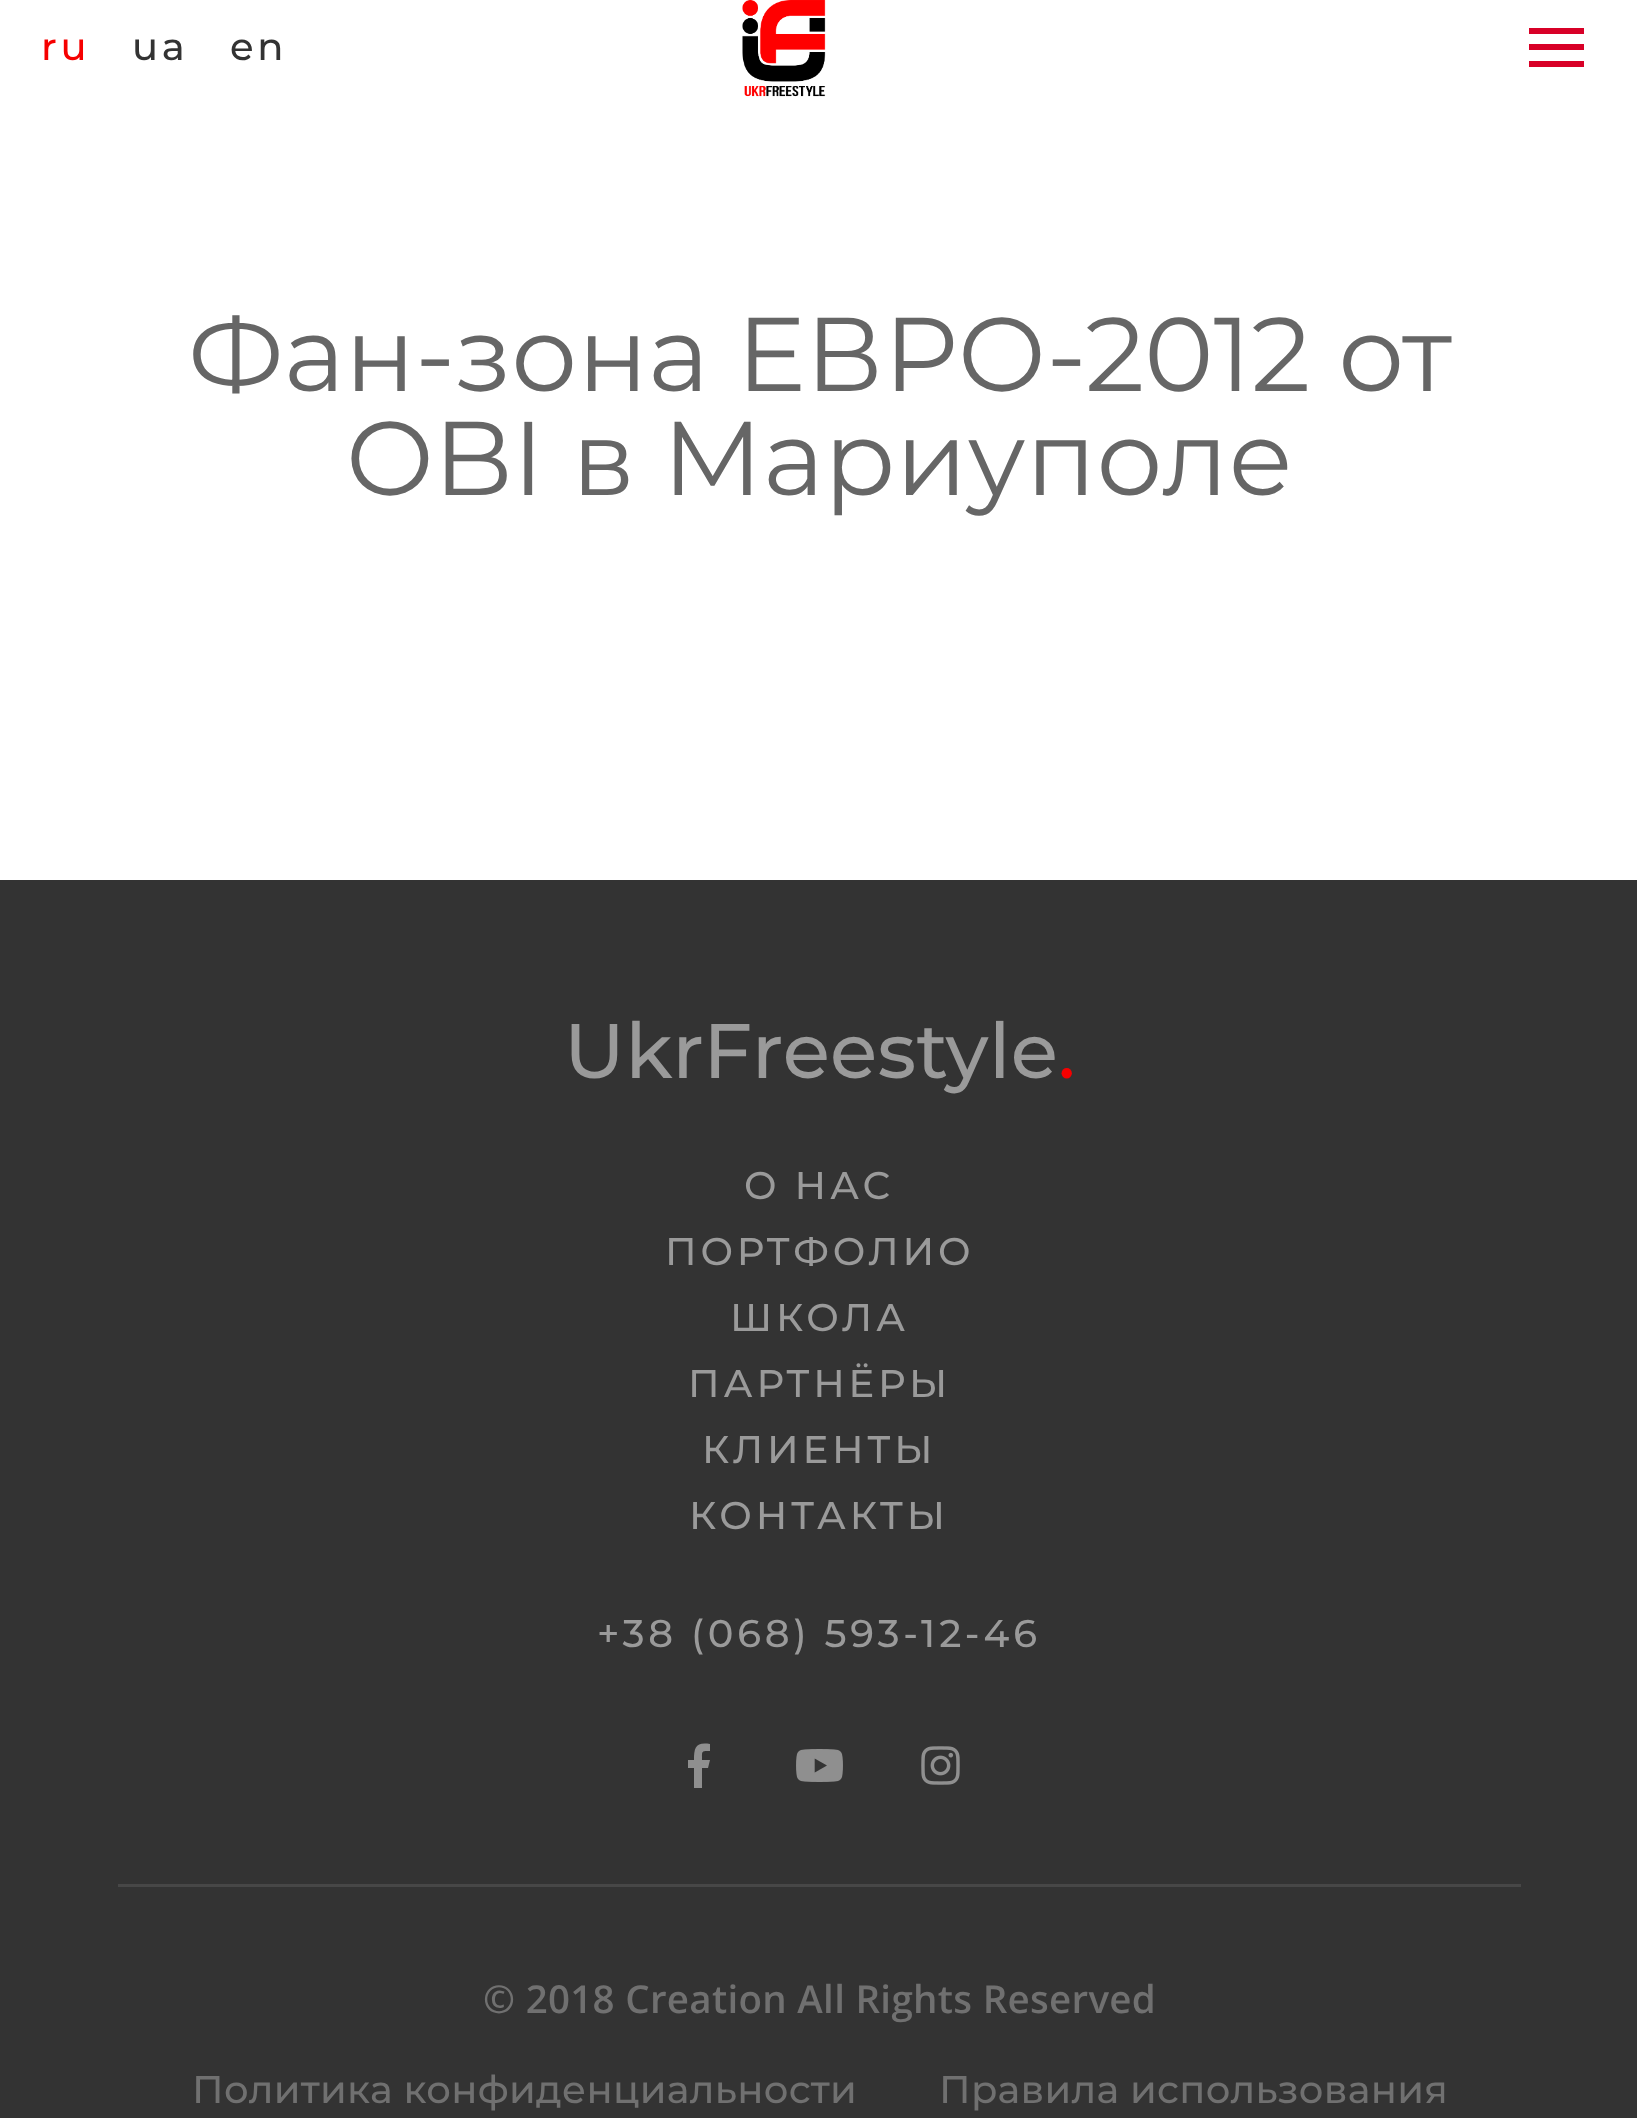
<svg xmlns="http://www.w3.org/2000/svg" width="1637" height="2118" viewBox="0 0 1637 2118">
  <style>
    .t1 { font: 500 38.5px Montserrat; letter-spacing: 3.8px; fill: #f60000; }
    .t2 { font: 500 38.5px Montserrat; letter-spacing: 3.8px; fill: #333; }
    .t3 { font: 104.5px Montserrat; fill: #666; }
    .t4 { font: 500 77px Montserrat; letter-spacing: 0.3px; fill: #9a9a9a; }
    .t5 { font: 500 77px Montserrat; fill: #f60000; }
    .t6 { font: 500 38.5px Montserrat; letter-spacing: 3.8px; fill: #9a9a9a; }
    .t7 { font: 600 38.5px Open Sans; letter-spacing: 0.3px; fill: #707070; }
    .t8 { font: 500 38.5px Montserrat; letter-spacing: 0.3px; fill: #707070; }
  </style>
  <rect width="100%" height="100%" fill="#fff"/>
  <text x="41" y="60" class="t1">ru</text>
  <text x="132" y="60" class="t2">ua</text>
  <text x="230" y="60" class="t2">en</text>
  <image x="742" y="0" width="84" height="97" href="images/1.png"/>
  <rect x="1529" y="44" width="55" height="6" fill="#d80027"/>
  <rect x="1529" y="28" width="55" height="6" fill="#d80027"/>
  <rect x="1529" y="61" width="55" height="6" fill="#d80027"/>
  <text x="188" y="391" class="t3">Фан-зона ЕВРО-2012 от</text>
  <text x="346" y="495" class="t3">OBI в Мариуполе</text>
  <rect x="0" y="880" width="1637" height="1238" fill="#333"/>
  <text x="564" y="1078" class="t4">UkrFreestyle</text>
  <text x="1058" y="1078" class="t5">.</text>
  <text x="744" y="1199" class="t6">О НАС</text>
  <text x="665" y="1265" class="t6">ПОРТФОЛИО</text>
  <text x="730" y="1331" class="t6">ШКОЛА</text>
  <text x="688" y="1397" class="t6">ПАРТНËРЫ</text>
  <text x="702" y="1463" class="t6">КЛИЕНТЫ</text>
  <text x="689" y="1529" class="t6">КОНТАКТЫ</text>
  <text x="597" y="1647" class="t6">+38 (068) 593-12-46</text>
  <path d="M694 1788V1768H688V1760H694C694 1747 696 1742 710 1744V1751C701 1751 702 1751 702 1760H710L708 1768H702V1788Z" fill="#8f8f8f"/>
  <image x="796" y="1749" width="47" height="33" href="images/2.png"/>
  <image x="921" y="1746" width="39" height="39" href="images/3.png"/>
  <rect x="118" y="1884" width="1403" height="3" fill="#474747"/>
  <text x="483" y="2013" class="t7">© 2018 Creation All Rights Reserved</text>
  <text x="192" y="2103" class="t8">Политика конфиденциальности</text>
  <text x="939" y="2103" class="t8">Правила использования</text>
</svg>
